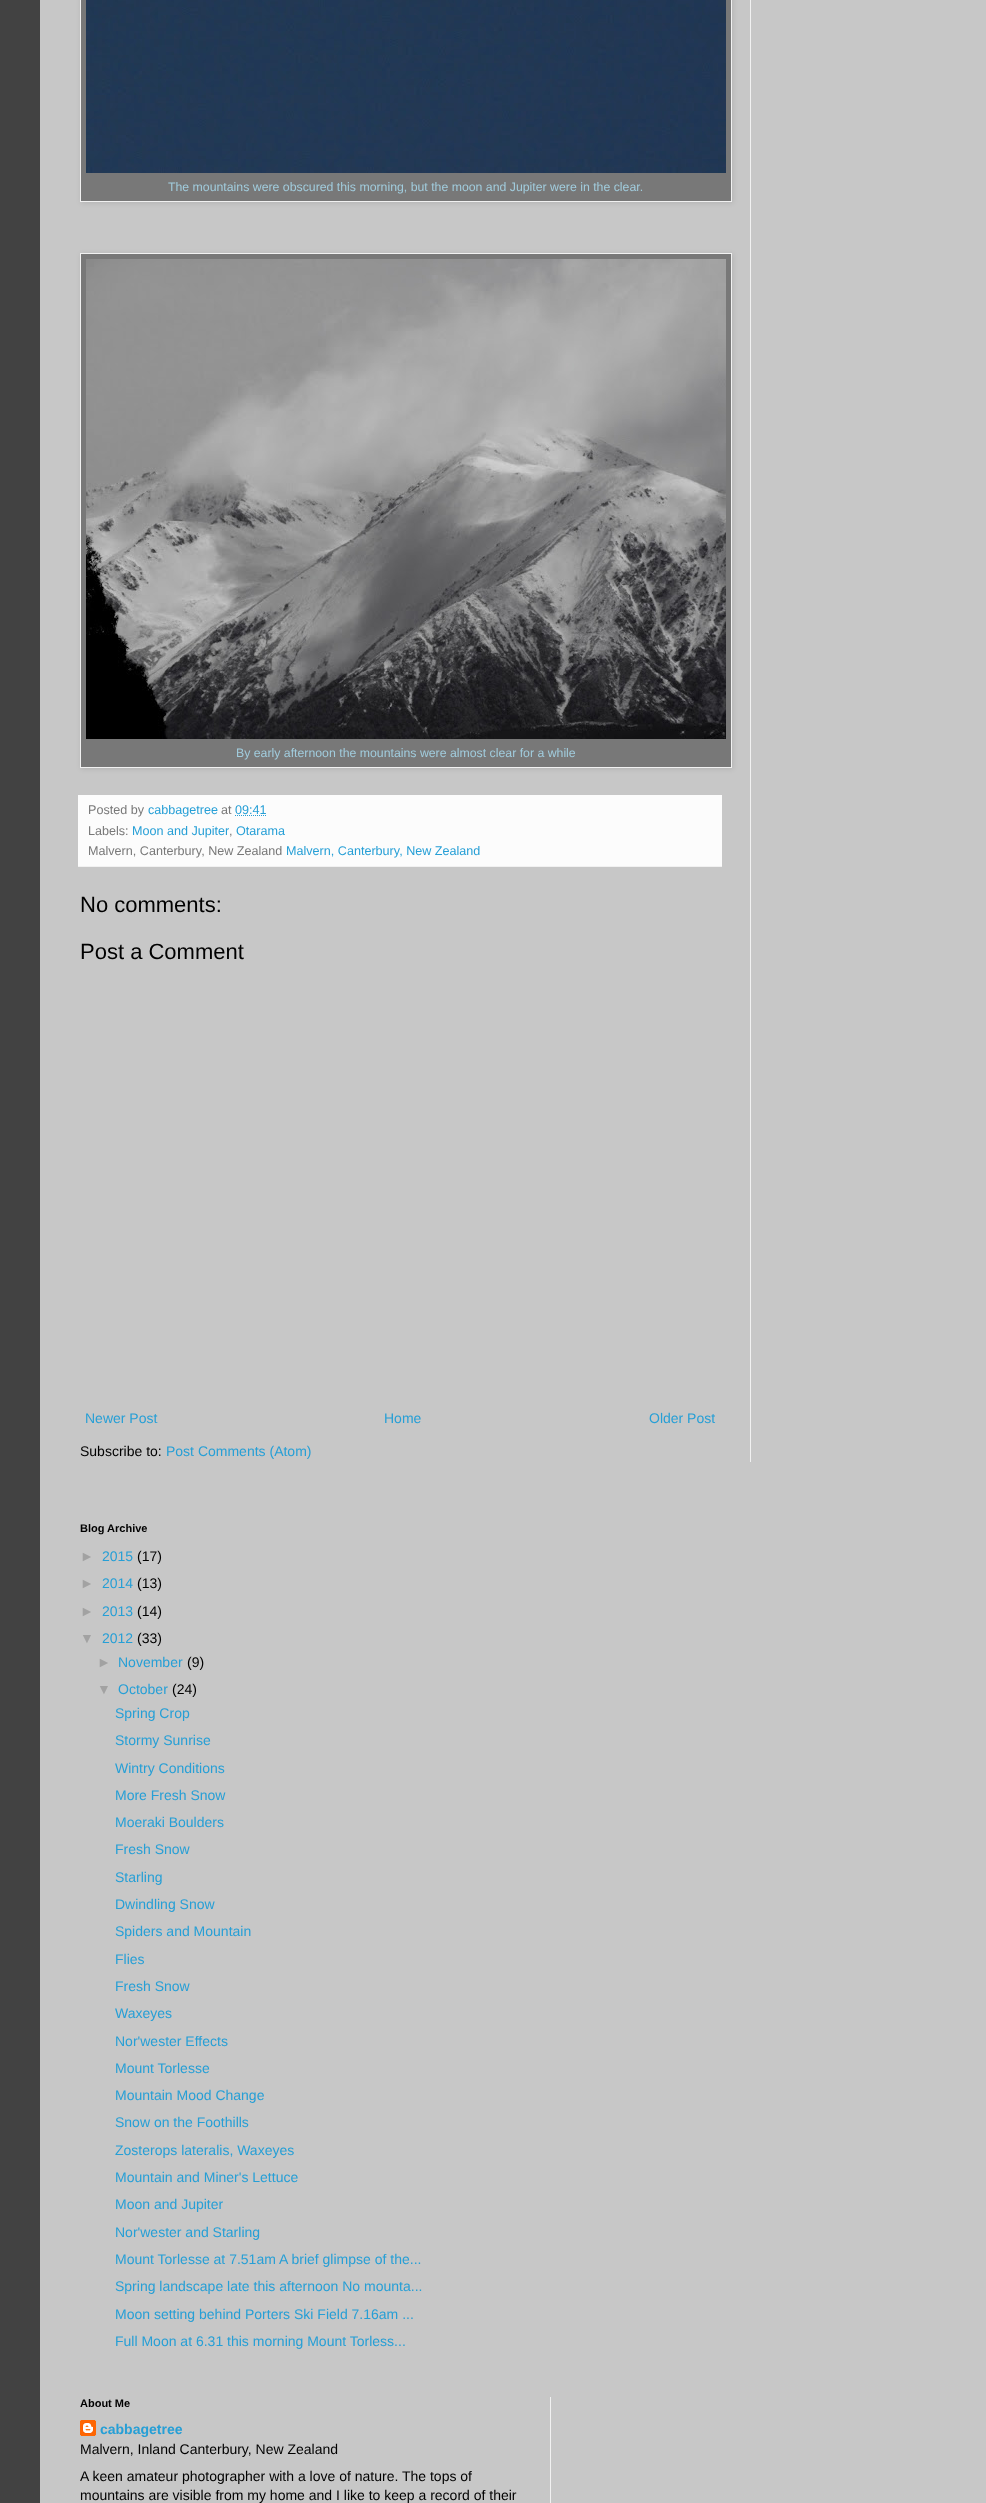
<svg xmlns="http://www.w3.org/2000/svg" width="986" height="2503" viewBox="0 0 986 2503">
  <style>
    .t1 { font: 12.3px Liberation Sans; fill: #a1ccdd; }
    .t2 { font: 12.6px Liberation Sans; fill: #787878; }
    .t3 { font: 12.6px Liberation Sans; fill: #269fd6; }
    .t4 { font: 22px Liberation Sans; fill: #000; }
    .t5 { font: 14px Liberation Sans; fill: #269fd6; }
    .t6 { font: 14px Liberation Sans; fill: #000; }
    .t7 { font: bold 11px Liberation Sans; fill: #000; }
    .t8 { font: 14px Liberation Sans; fill: #a2a2a2; }
    .t9 { font: bold 14px Liberation Sans; fill: #269fd6; }
  </style>
  <rect width="100%" height="100%" fill="#424242"/>
  <rect x="40" y="0" width="946" height="2503" fill="#c7c7c7"/>
  <rect x="81" y="-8" width="652" height="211" fill="#0000001a" filter="blur(2.5px)"/>
  <rect x="80.5" y="-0.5" width="651" height="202" fill="#787878" stroke="#f1f1f1"/>
  <image x="86" y="0" width="640" height="173" href="images/1.png"/>
  <text x="168" y="191" class="t1">The mountains were obscured this morning, but the moon and Jupiter were in the clear.</text>
  <rect x="81" y="254" width="652" height="515" fill="#0000001a" filter="blur(2.5px)"/>
  <rect x="80.5" y="253.5" width="651" height="514" fill="#787878" stroke="#f1f1f1"/>
  <image x="86" y="259" width="640" height="480" href="images/2.png"/>
  <text x="236" y="757" class="t1">By early afternoon the mountains were almost clear for a while</text>
  <rect x="78" y="795" width="644" height="71" fill="#fcfcfc"/>
  <rect x="78" y="866" width="644" height="1" fill="#f1f1f1"/>
  <text x="88" y="814" class="t2">Posted by</text>
  <text x="148" y="814" class="t3">cabbagetree</text>
  <text x="221" y="814" class="t2">at</text>
  <text x="235" y="814" class="t3">09:41</text>
  <path d="M235 815.5H266.5" fill="none" stroke="#269fd6" stroke-dasharray="1 1"/>
  <text x="88" y="835" class="t2">Labels:</text>
  <text x="132" y="835" class="t3">Moon and Jupiter</text>
  <text x="229" y="835" class="t2">,</text>
  <text x="236" y="835" class="t3">Otarama</text>
  <text x="88" y="855" class="t2">Malvern, Canterbury, New Zealand</text>
  <text x="286" y="855" class="t3">Malvern, Canterbury, New Zealand</text>
  <text x="80" y="912" class="t4">No comments:</text>
  <text x="80" y="959" class="t4">Post a Comment</text>
  <text x="85" y="1423" class="t5">Newer Post</text>
  <text x="384" y="1423" class="t5">Home</text>
  <text x="649" y="1423" class="t5">Older Post</text>
  <text x="80" y="1456" class="t6">Subscribe to:</text>
  <text x="166" y="1456" class="t5">Post Comments (Atom)</text>
  <rect x="750" y="0" width="1" height="1462" fill="#f1f1f1"/>
  <text x="80" y="1532" class="t7">Blog Archive</text>
  <text x="80" y="1561" class="t8">►</text>
  <text x="102" y="1561" class="t5">2015</text>
  <text x="137" y="1561" class="t6">(17)</text>
  <text x="80" y="1588" class="t8">►</text>
  <text x="102" y="1588" class="t5">2014</text>
  <text x="137" y="1588" class="t6">(13)</text>
  <text x="80" y="1616" class="t8">►</text>
  <text x="102" y="1616" class="t5">2013</text>
  <text x="137" y="1616" class="t6">(14)</text>
  <text x="80" y="1643" class="t8">▼</text>
  <text x="102" y="1643" class="t5">2012</text>
  <text x="137" y="1643" class="t6">(33)</text>
  <text x="97" y="1667" class="t8">►</text>
  <text x="118" y="1667" class="t5">November</text>
  <text x="187" y="1667" class="t6">(9)</text>
  <text x="97" y="1694" class="t8">▼</text>
  <text x="118" y="1694" class="t5">October</text>
  <text x="172" y="1694" class="t6">(24)</text>
  <text x="115" y="1718" class="t5">Spring Crop</text>
  <text x="115" y="1745" class="t5">Stormy Sunrise</text>
  <text x="115" y="1773" class="t5">Wintry Conditions</text>
  <text x="115" y="1800" class="t5">More Fresh Snow</text>
  <text x="115" y="1827" class="t5">Moeraki Boulders</text>
  <text x="115" y="1854" class="t5">Fresh Snow</text>
  <text x="115" y="1882" class="t5">Starling</text>
  <text x="115" y="1909" class="t5">Dwindling Snow</text>
  <text x="115" y="1936" class="t5">Spiders and Mountain</text>
  <text x="115" y="1964" class="t5">Flies</text>
  <text x="115" y="1991" class="t5">Fresh Snow</text>
  <text x="115" y="2018" class="t5">Waxeyes</text>
  <text x="115" y="2046" class="t5">Nor'wester Effects</text>
  <text x="115" y="2073" class="t5">Mount Torlesse</text>
  <text x="115" y="2100" class="t5">Mountain Mood Change</text>
  <text x="115" y="2127" class="t5">Snow on the Foothills</text>
  <text x="115" y="2155" class="t5">Zosterops lateralis, Waxeyes</text>
  <text x="115" y="2182" class="t5">Mountain and Miner's Lettuce</text>
  <text x="115" y="2209" class="t5">Moon and Jupiter</text>
  <text x="115" y="2237" class="t5">Nor'wester and Starling</text>
  <text x="115" y="2264" class="t5">Mount Torlesse at 7.51am</text>
  <text x="279" y="2264" class="t5">A brief glimpse of the...</text>
  <text x="115" y="2291" class="t5">Spring landscape late this afternoon No mounta...</text>
  <text x="115" y="2319" class="t5">Moon setting behind Porters Ski Field 7.16am ...</text>
  <text x="115" y="2346" class="t5">Full Moon at 6.31 this morning Mount Torless...</text>
  <text x="80" y="2407" class="t7">About Me</text>
  <image x="80" y="2420" width="16" height="16" href="images/3.png"/>
  <text x="100" y="2434" class="t9">cabbagetree</text>
  <text x="80" y="2454" class="t6">Malvern, Inland Canterbury, New Zealand</text>
  <text x="80" y="2481" class="t6">A keen amateur photographer with a love of nature. The tops of</text>
  <text x="80" y="2500" class="t6">mountains are visible from my home and I like to keep a record of their</text>
  <rect x="550" y="2397" width="1" height="106" fill="#f1f1f1"/>
</svg>
